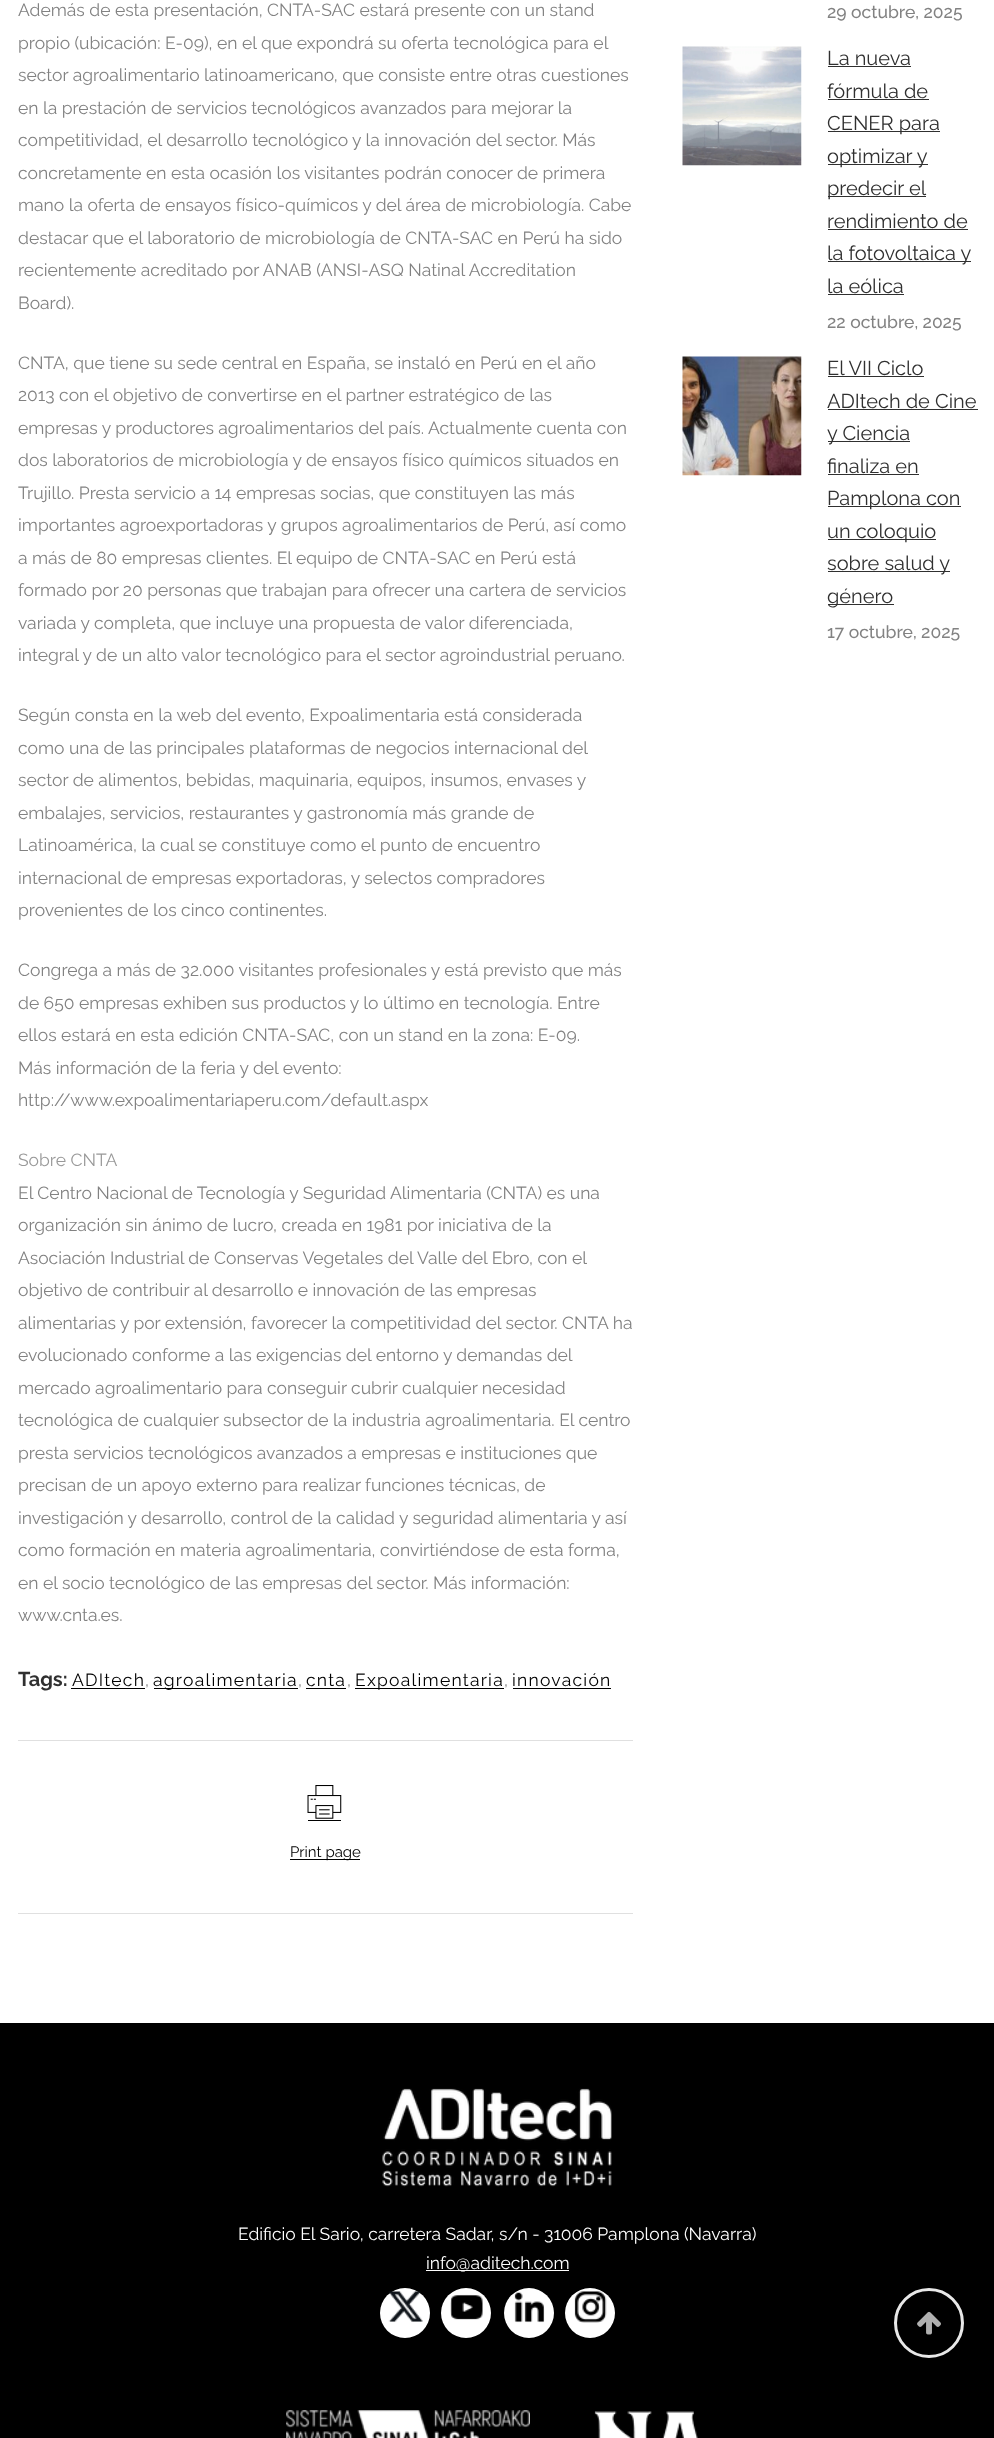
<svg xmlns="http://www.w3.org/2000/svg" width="994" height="2438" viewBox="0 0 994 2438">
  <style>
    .t1 { font: 17.5px Raleway; fill: #828282; }
    .t2 { font: 17.5px Raleway; fill: #999; }
    .t3 { font: bold 20px Raleway; fill: #303030; }
    .t4 { font: 17.5px Raleway; letter-spacing: 1.25px; fill: #000; }
    .t5 { font: 15px Raleway; fill: #000; }
    .t6 { font: 500 17.5px Raleway; fill: #828282; }
    .t7 { font: 20px Raleway; fill: #303030; }
    .t8 { font: 17.5px Raleway; fill: #fff; }
  </style>
  <rect width="100%" height="100%" fill="#fff"/>
  <text x="18" y="16" class="t1">Además de esta presentación, CNTA-SAC estará presente con un stand</text>
  <text x="18" y="49" class="t1">propio (ubicación: E-09), en el que expondrá su oferta tecnológica para el</text>
  <text x="18" y="81" class="t1">sector agroalimentario latinoamericano, que consiste entre otras cuestiones</text>
  <text x="18" y="114" class="t1">en la prestación de servicios tecnológicos avanzados para mejorar la</text>
  <text x="18" y="146" class="t1">competitividad, el desarrollo tecnológico y la innovación del sector. Más</text>
  <text x="18" y="179" class="t1">concretamente en esta ocasión los visitantes podrán conocer de primera</text>
  <text x="18" y="211" class="t1">mano la oferta de ensayos físico-químicos y del área de microbiología. Cabe</text>
  <text x="18" y="244" class="t1">destacar que el laboratorio de microbiología de CNTA-SAC en Perú ha sido</text>
  <text x="18" y="276" class="t1">recientemente acreditado por ANAB (ANSI-ASQ Natinal Accreditation</text>
  <text x="18" y="309" class="t1">Board).</text>
  <text x="18" y="369" class="t1">CNTA, que tiene su sede central en España, se instaló en Perú en el año</text>
  <text x="18" y="401" class="t1">2013 con el objetivo de convertirse en el partner estratégico de las</text>
  <text x="18" y="434" class="t1">empresas y productores agroalimentarios del país. Actualmente cuenta con</text>
  <text x="18" y="466" class="t1">dos laboratorios de microbiología y de ensayos físico químicos situados en</text>
  <text x="18" y="499" class="t1">Trujillo. Presta servicio a 14 empresas socias, que constituyen las más</text>
  <text x="18" y="531" class="t1">importantes agroexportadoras y grupos agroalimentarios de Perú, así como</text>
  <text x="18" y="564" class="t1">a más de 80 empresas clientes. El equipo de CNTA-SAC en Perú está</text>
  <text x="18" y="596" class="t1">formado por 20 personas que trabajan para ofrecer una cartera de servicios</text>
  <text x="18" y="629" class="t1">variada y completa, que incluye una propuesta de valor diferenciada,</text>
  <text x="18" y="661" class="t1">integral y de un alto valor tecnológico para el sector agroindustrial peruano.</text>
  <text x="18" y="721" class="t1">Según consta en la web del evento, Expoalimentaria está considerada</text>
  <text x="18" y="754" class="t1">como una de las principales plataformas de negocios internacional del</text>
  <text x="18" y="786" class="t1">sector de alimentos, bebidas, maquinaria, equipos, insumos, envases y</text>
  <text x="18" y="819" class="t1">embalajes, servicios, restaurantes y gastronomía más grande de</text>
  <text x="18" y="851" class="t1">Latinoamérica, la cual se constituye como el punto de encuentro</text>
  <text x="18" y="884" class="t1">internacional de empresas exportadoras, y selectos compradores</text>
  <text x="18" y="916" class="t1">provenientes de los cinco continentes.</text>
  <text x="18" y="976" class="t1">Congrega a más de 32.000 visitantes profesionales y está previsto que más</text>
  <text x="18" y="1009" class="t1">de 650 empresas exhiben sus productos y lo último en tecnología. Entre</text>
  <text x="18" y="1041" class="t1">ellos estará en esta edición CNTA-SAC, con un stand en la zona: E-09.</text>
  <text x="18" y="1074" class="t1">Más información de la feria y del evento:</text>
  <text x="18" y="1106" class="t1">http://www.expoalimentariaperu.com/default.aspx</text>
  <text x="18" y="1166" class="t2">Sobre CNTA</text>
  <text x="18" y="1199" class="t1">El Centro Nacional de Tecnología y Seguridad Alimentaria (CNTA) es una</text>
  <text x="18" y="1231" class="t1">organización sin ánimo de lucro, creada en 1981 por iniciativa de la</text>
  <text x="18" y="1264" class="t1">Asociación Industrial de Conservas Vegetales del Valle del Ebro, con el</text>
  <text x="18" y="1296" class="t1">objetivo de contribuir al desarrollo e innovación de las empresas</text>
  <text x="18" y="1329" class="t1">alimentarias y por extensión, favorecer la competitividad del sector. CNTA ha</text>
  <text x="18" y="1361" class="t1">evolucionado conforme a las exigencias del entorno y demandas del</text>
  <text x="18" y="1394" class="t1">mercado agroalimentario para conseguir cubrir cualquier necesidad</text>
  <text x="18" y="1426" class="t1">tecnológica de cualquier subsector de la industria agroalimentaria. El centro</text>
  <text x="18" y="1459" class="t1">presta servicios tecnológicos avanzados a empresas e instituciones que</text>
  <text x="18" y="1491" class="t1">precisan de un apoyo externo para realizar funciones técnicas, de</text>
  <text x="18" y="1524" class="t1">investigación y desarrollo, control de la calidad y seguridad alimentaria y así</text>
  <text x="18" y="1556" class="t1">como formación en materia agroalimentaria, convirtiéndose de esta forma,</text>
  <text x="18" y="1589" class="t1">en el socio tecnológico de las empresas del sector. Más información:</text>
  <text x="18" y="1621" class="t1">www.cnta.es.</text>
  <text x="18" y="1686" class="t3">Tags:</text>
  <text x="72" y="1686" class="t4">ADItech</text>
  <rect x="71" y="1688" width="74" height="1" fill="#000"/>
  <text x="145" y="1686" class="t1">,</text>
  <rect x="154" y="1688" width="144" height="1" fill="#000"/>
  <text x="153" y="1686" class="t4">agroalimentaria</text>
  <text x="298" y="1686" class="t1">,</text>
  <text x="306" y="1686" class="t4">cnta</text>
  <rect x="306" y="1688" width="40" height="1" fill="#000"/>
  <text x="347" y="1686" class="t1">,</text>
  <rect x="355" y="1688" width="149" height="1" fill="#000"/>
  <text x="355" y="1686" class="t4">Expoalimentaria</text>
  <text x="504" y="1686" class="t1">,</text>
  <text x="512" y="1686" class="t4">innovación</text>
  <rect x="513" y="1688" width="98" height="1" fill="#000"/>
  <rect x="18" y="1740" width="615" height="1" fill="#e0e0e0"/>
  <rect x="18" y="1913" width="615" height="1" fill="#e0e0e0"/>
  <image x="307" y="1785" width="35" height="34" href="images/1.png"/>
  <rect x="308" y="1820" width="33" height="1" fill="#000"/>
  <rect x="290" y="1859" width="70" height="1" fill="#000"/>
  <text x="290" y="1857" class="t5">Print page</text>
  <text x="827" y="18" class="t6">29 octubre, 2025</text>
  <image x="682" y="46" width="120" height="120" href="images/2.png"/>
  <text x="827" y="65" class="t7">La nueva</text>
  <rect x="828" y="66" width="83" height="1" fill="#303030"/>
  <text x="827" y="98" class="t7">fórmula de</text>
  <rect x="828" y="99" width="101" height="1" fill="#303030"/>
  <rect x="828" y="131" width="112" height="1" fill="#303030"/>
  <text x="827" y="130" class="t7">CENER para</text>
  <rect x="828" y="164" width="100" height="1" fill="#303030"/>
  <text x="827" y="163" class="t7">optimizar y</text>
  <rect x="828" y="196" width="98" height="1" fill="#303030"/>
  <text x="827" y="195" class="t7">predecir el</text>
  <text x="827" y="228" class="t7">rendimiento de</text>
  <rect x="828" y="229" width="140" height="1" fill="#303030"/>
  <rect x="828" y="261" width="143" height="1" fill="#303030"/>
  <text x="827" y="260" class="t7">la fotovoltaica y</text>
  <text x="827" y="293" class="t7">la eólica</text>
  <rect x="828" y="294" width="76" height="1" fill="#303030"/>
  <text x="827" y="328" class="t6">22 octubre, 2025</text>
  <image x="682" y="356" width="120" height="120" href="images/3.png"/>
  <text x="827" y="375" class="t7">El VII Ciclo</text>
  <rect x="828" y="376" width="96" height="1" fill="#303030"/>
  <text x="827" y="408" class="t7">ADItech de Cine</text>
  <rect x="828" y="409" width="150" height="1" fill="#303030"/>
  <rect x="828" y="441" width="82" height="1" fill="#303030"/>
  <text x="827" y="440" class="t7">y Ciencia</text>
  <text x="827" y="473" class="t7">finaliza en</text>
  <rect x="828" y="474" width="91" height="1" fill="#303030"/>
  <rect x="828" y="506" width="133" height="1" fill="#303030"/>
  <text x="827" y="505" class="t7">Pamplona con</text>
  <rect x="828" y="539" width="108" height="1" fill="#303030"/>
  <text x="827" y="538" class="t7">un coloquio</text>
  <rect x="828" y="571" width="122" height="1" fill="#303030"/>
  <text x="827" y="570" class="t7">sobre salud y</text>
  <rect x="828" y="604" width="66" height="1" fill="#303030"/>
  <text x="827" y="603" class="t7">género</text>
  <text x="827" y="638" class="t6">17 octubre, 2025</text>
  <rect x="0" y="2023" width="994" height="415" fill="#000"/>
  <image x="382" y="2088" width="230" height="99" href="images/4.png"/>
  <text x="238" y="2240" class="t8">Edificio El Sario, carretera Sadar, s/n - 31006 Pamplona (Navarra)</text>
  <rect x="426" y="2270" width="143" height="1" fill="#fff"/>
  <text x="426" y="2269" class="t8">info@aditech.com</text>
  <circle cx="405" cy="2313" r="25" fill="#fff"/>
  <image x="388" y="2291" width="35" height="31" href="images/5.png"/>
  <circle cx="466" cy="2313" r="25" fill="#fff"/>
  <image x="450" y="2294" width="33" height="26" href="images/6.png"/>
  <circle cx="529" cy="2313" r="25" fill="#fff"/>
  <image x="514" y="2292" width="31" height="31" href="images/7.png"/>
  <circle cx="590" cy="2313" r="25" fill="#fff"/>
  <image x="574" y="2291" width="33" height="32" href="images/8.png"/>
  <image x="286" y="2410" width="244" height="28" href="images/9.png"/>
  <image x="594" y="2411" width="104" height="27" href="images/10.png"/>
  <circle cx="929" cy="2323" r="33.5" fill="none" stroke="#e8e8e8" stroke-width="3"/>
  <image x="917" y="2311" width="24" height="24" href="images/11.png"/>
</svg>
